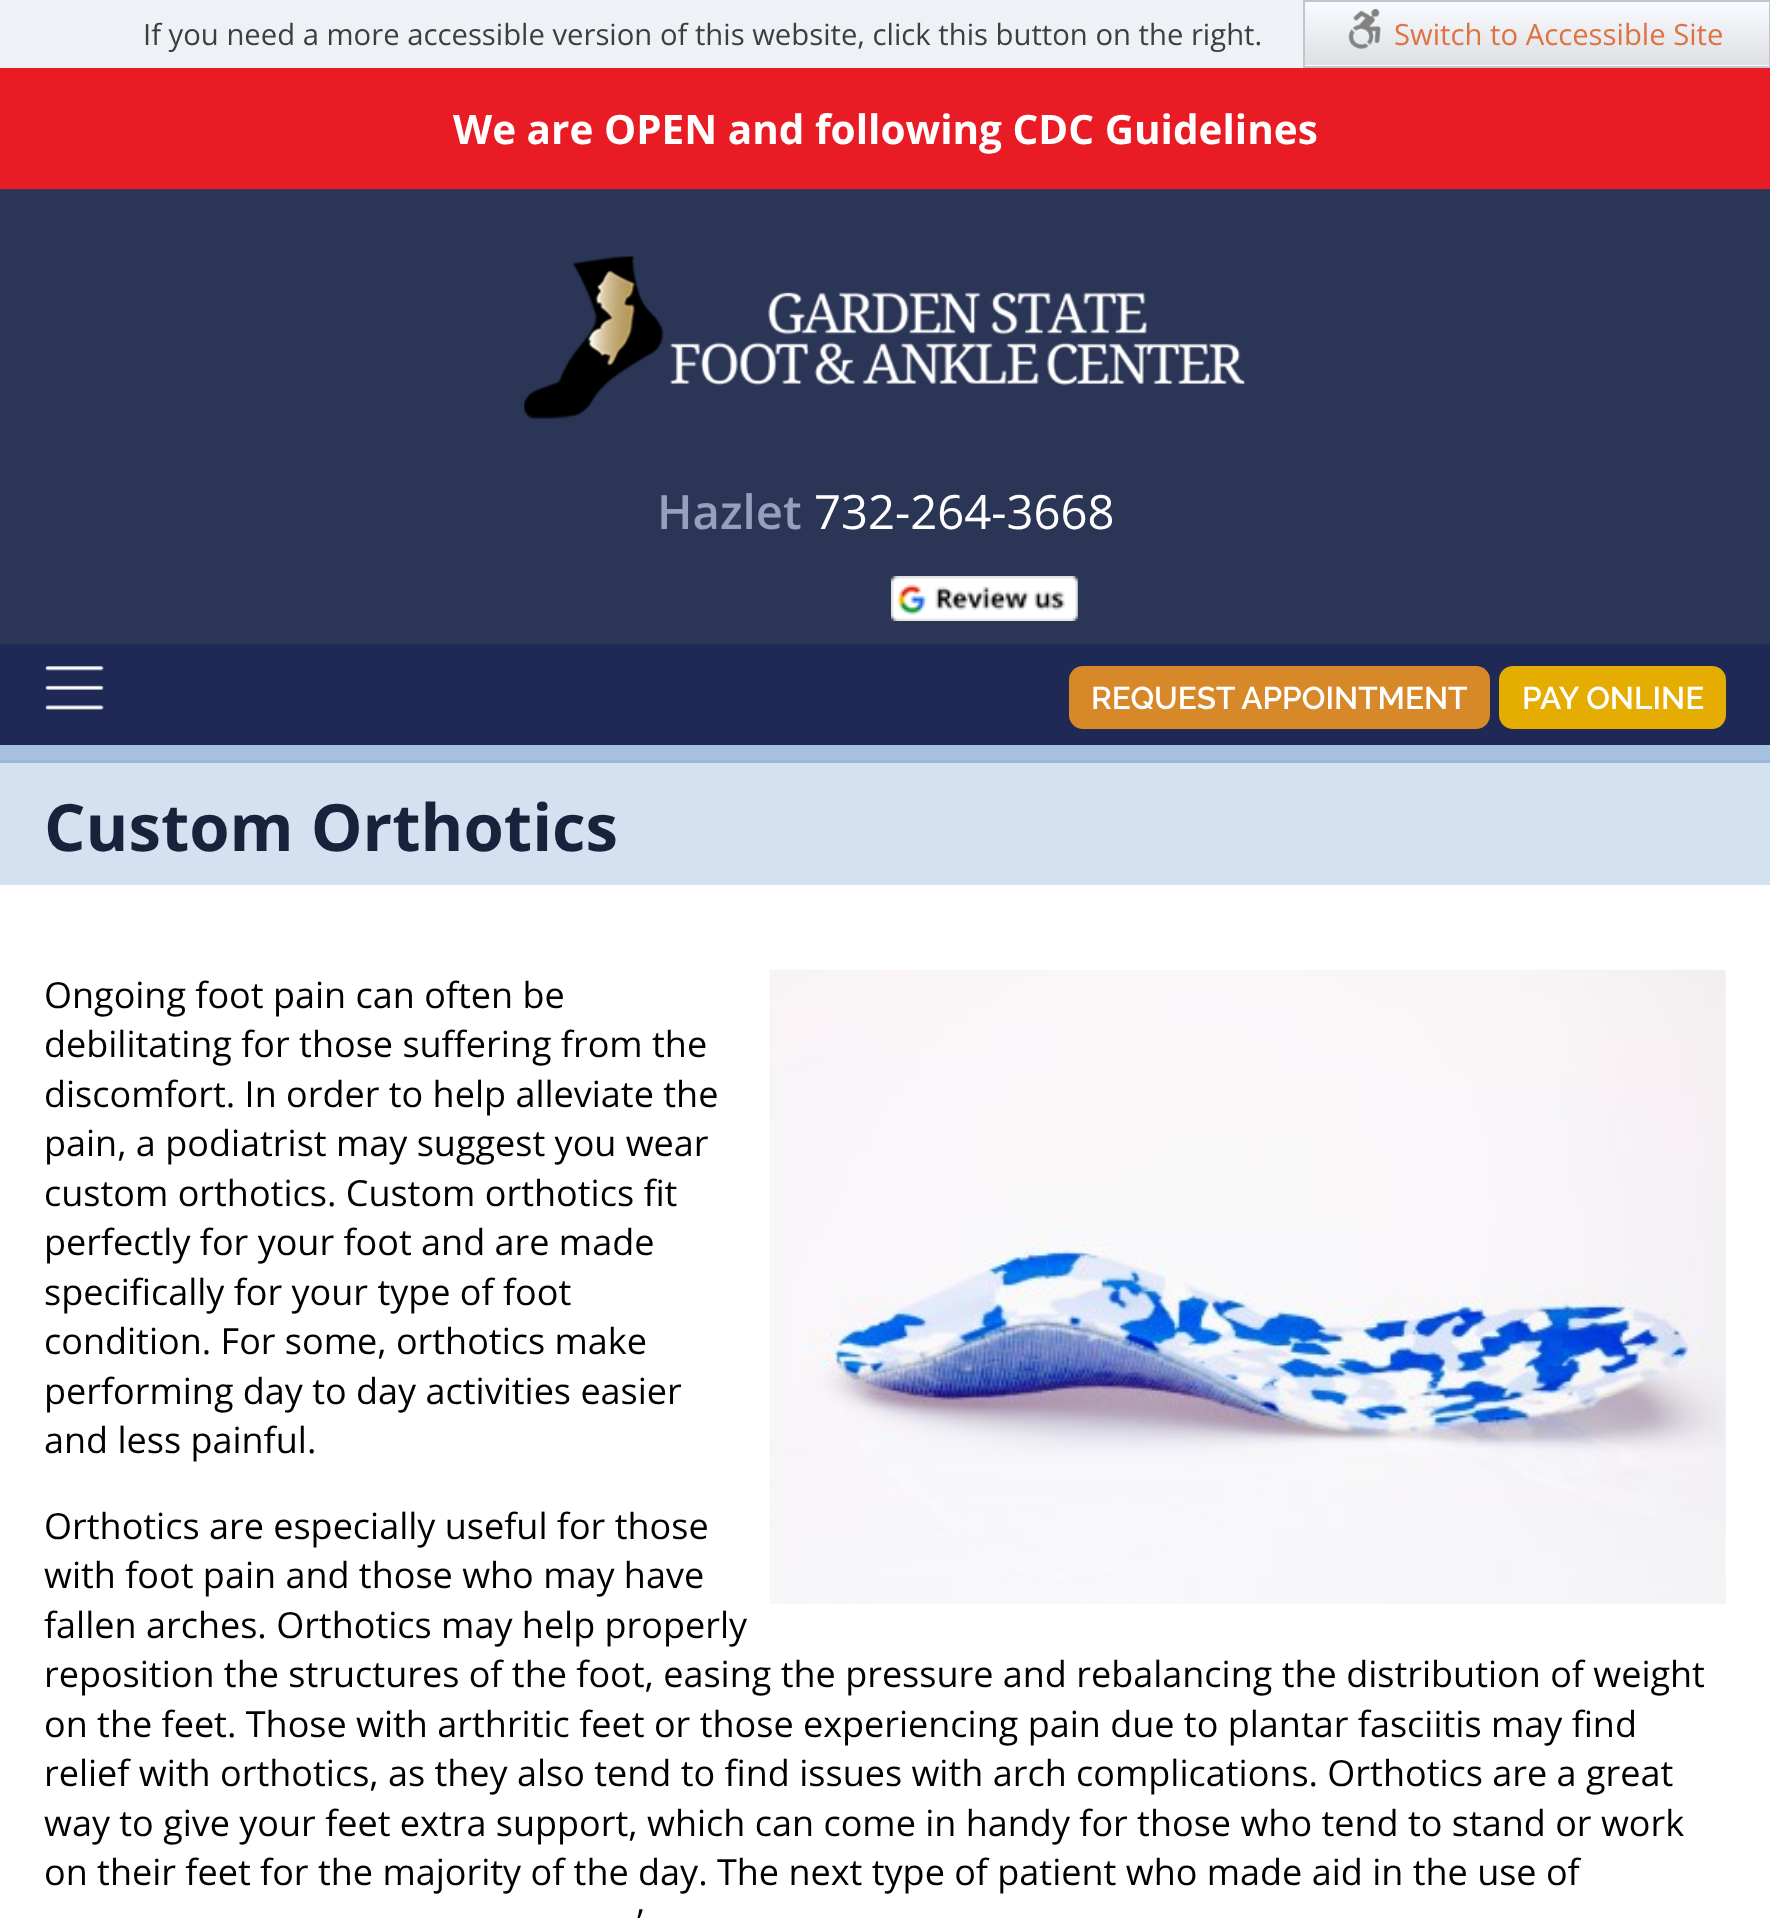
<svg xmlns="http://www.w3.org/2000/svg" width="1770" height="1918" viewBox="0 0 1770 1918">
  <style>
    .t1 { font: 29.25px Open Sans; fill: #3e3e40; }
    .t2 { font: 29.25px Open Sans; fill: #de7341; }
    .t3 { font: bold 40.5px Open Sans; fill: #fff; }
    .t4 { font: 600 47.25px Open Sans; fill: #94a0be; }
    .t5 { font: 47.25px Open Sans; fill: #fff; }
    .t6 { font: 600 31.5px Raleway; fill: #fff; }
    .t7 { font: bold 65.25px Open Sans; fill: #18223b; }
    .t8 { font: 36px Open Sans; fill: #000; }
  </style>
  <defs>
    <linearGradient id="g1" gradientUnits="userSpaceOnUse" x1="1537" y1="2.2" x2="1537" y2="65"><stop offset="0" stop-color="#f8fbff"/><stop offset="1" stop-color="#dddfe3"/></linearGradient>
    <linearGradient id="g2" gradientUnits="userSpaceOnUse" x1="1537" y1="65" x2="1537" y2="128"><stop offset="0" stop-color="#f8fbff"/><stop offset="1" stop-color="#dddfe3"/></linearGradient>
  </defs>
  <rect width="100%" height="100%" fill="#fff"/>
  <rect x="0" y="745" width="1770" height="15" fill="#a7c1e1"/>
  <rect x="0" y="0" width="1303" height="68" fill="#eef1f5"/>
  <text x="143" y="45" class="t1">If you need a more accessible version of this website, click this button on the right.</text>
  <rect x="1305" y="2" width="464" height="63" fill="url(#g1)"/>
  <rect x="1303" y="65" width="467" height="1" fill="url(#g2)"/>
  <rect x="1304" y="1" width="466" height="66" fill="none" stroke="#c2c6cc" stroke-width="2"/>
  <image x="1348" y="9" width="33" height="40" href="images/1.png"/>
  <text x="1394" y="45" class="t2">Switch to Accessible Site</text>
  <rect x="0" y="68" width="1770" height="121" fill="#e91b25"/>
  <text x="453" y="144" class="t3">We are OPEN and following CDC Guidelines</text>
  <rect x="0" y="189" width="1770" height="455" fill="#2b3657"/>
  <image x="524" y="256" width="721" height="163" href="images/2.png"/>
  <text x="657" y="529" class="t4">Hazlet</text>
  <text x="814" y="529" class="t5">732-264-3668</text>
  <image x="891" y="576" width="187" height="45" href="images/3.png"/>
  <rect x="0" y="644" width="1770" height="101" fill="#1e2955"/>
  <image x="45" y="666" width="59" height="44" href="images/4.png"/>
  <rect x="1069" y="666" width="421" height="63" rx="14" fill="#d78828"/>
  <text x="1091" y="709" class="t6">REQUEST APPOINTMENT</text>
  <rect x="1499" y="666" width="227" height="63" rx="14" fill="#e5ac01"/>
  <text x="1522" y="709" class="t6">PAY ONLINE</text>
  <rect x="0" y="763" width="1770" height="122" fill="#d4e1f1"/>
  <rect x="0" y="760" width="1770" height="3" fill="#9ab8dd"/>
  <text x="44" y="851" class="t7">Custom Orthotics</text>
  <text x="44" y="1008" class="t8">Ongoing foot pain can often be</text>
  <text x="44" y="1057" class="t8">debilitating for those suffering from the</text>
  <text x="44" y="1107" class="t8">discomfort. In order to help alleviate the</text>
  <text x="44" y="1156" class="t8">pain, a podiatrist may suggest you wear</text>
  <text x="44" y="1206" class="t8">custom orthotics. Custom orthotics fit</text>
  <text x="44" y="1255" class="t8">perfectly for your foot and are made</text>
  <text x="44" y="1305" class="t8">specifically for your type of foot</text>
  <text x="44" y="1354" class="t8">condition. For some, orthotics make</text>
  <text x="44" y="1404" class="t8">performing day to day activities easier</text>
  <text x="44" y="1453" class="t8">and less painful.</text>
  <image x="769" y="969" width="957" height="635" href="images/5.png"/>
  <text x="44" y="1539" class="t8">Orthotics are especially useful for those</text>
  <text x="44" y="1588" class="t8">with foot pain and those who may have</text>
  <text x="44" y="1638" class="t8">fallen arches. Orthotics may help properly</text>
  <text x="44" y="1687" class="t8">reposition the structures of the foot, easing the pressure and rebalancing the distribution of weight</text>
  <text x="44" y="1737" class="t8">on the feet. Those with arthritic feet or those experiencing pain due to plantar fasciitis may find</text>
  <text x="44" y="1786" class="t8">relief with orthotics, as they also tend to find issues with arch complications. Orthotics are a great</text>
  <text x="44" y="1836" class="t8">way to give your feet extra support, which can come in handy for those who tend to stand or work</text>
  <text x="44" y="1885" class="t8">on their feet for the majority of the day. The next type of patient who made aid in the use of</text>
  <text x="637" y="1935" class="t8">’</text>
</svg>
